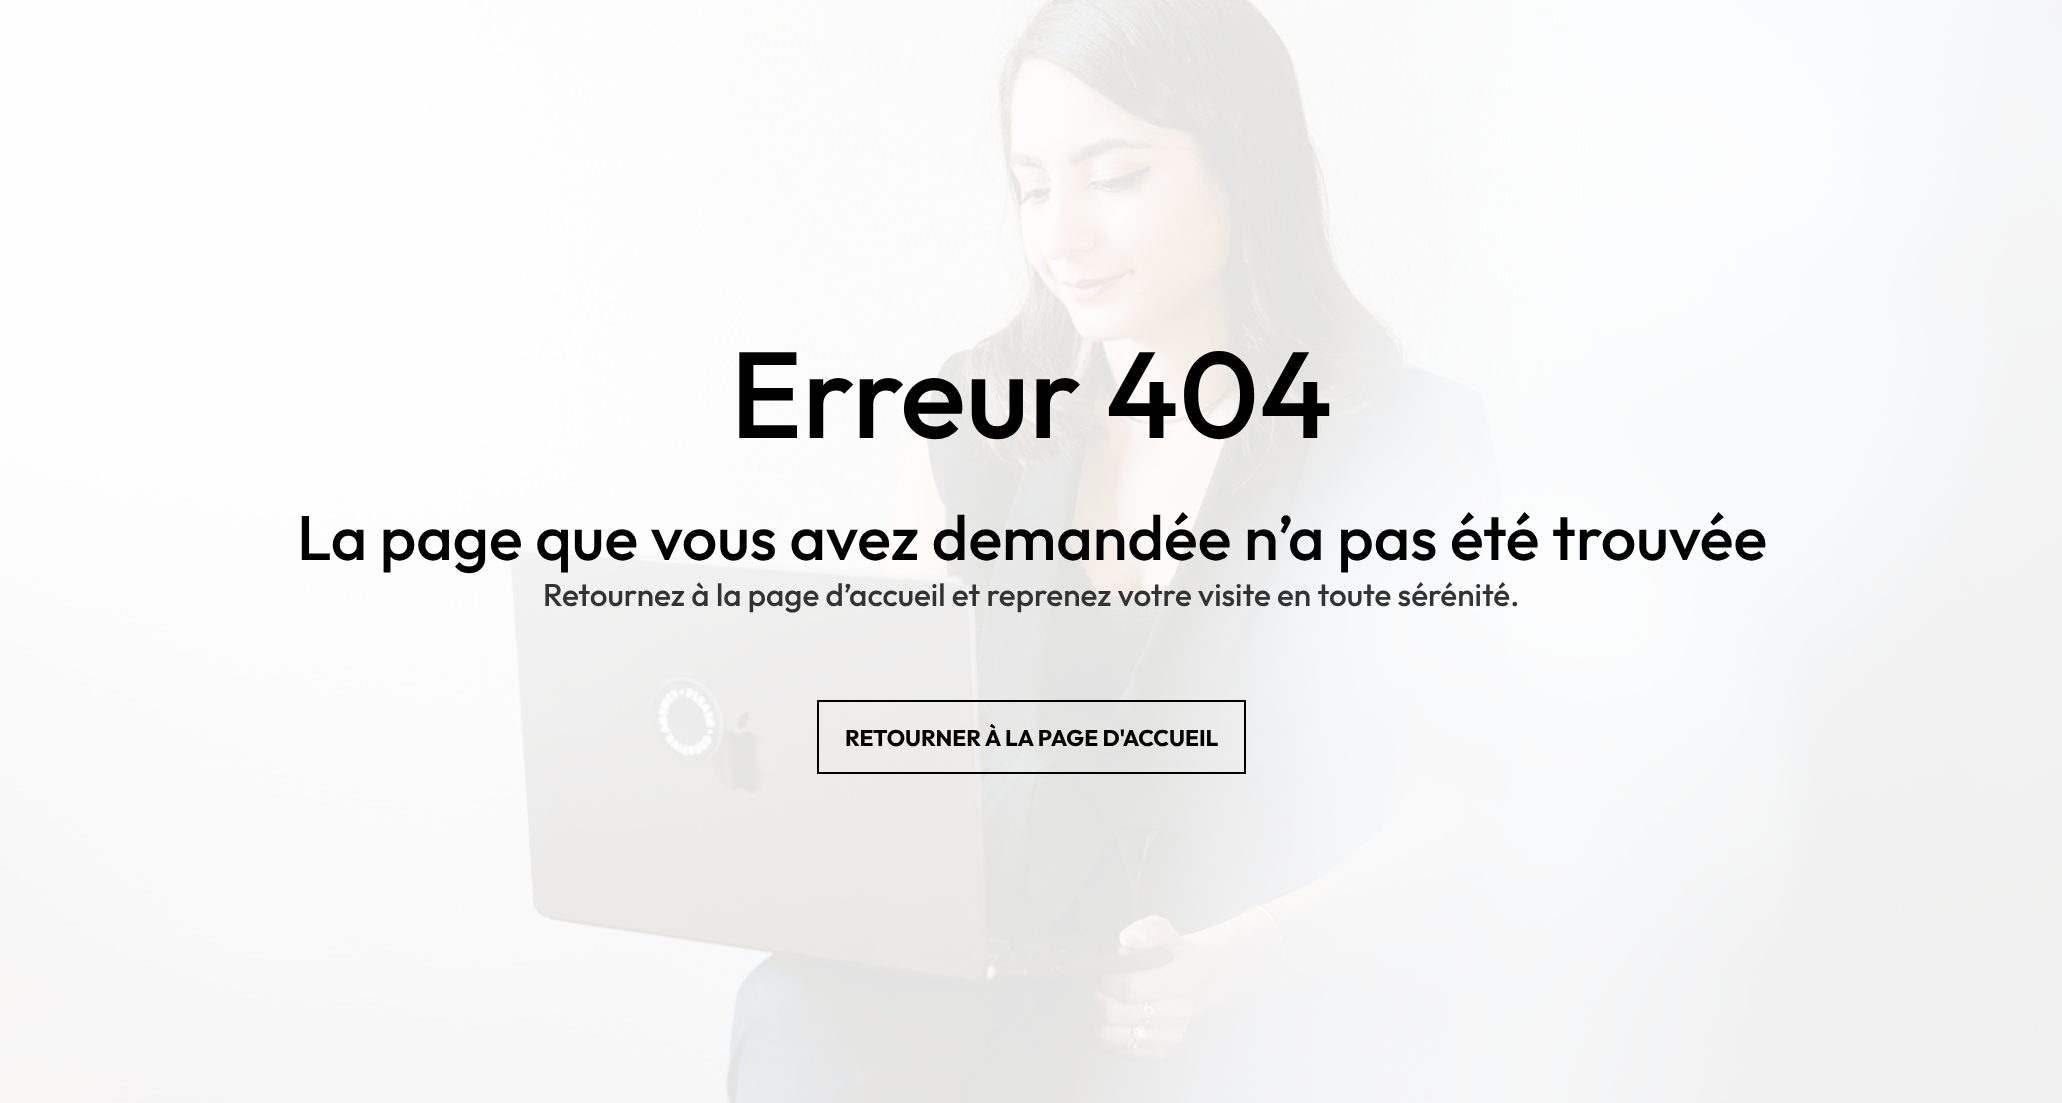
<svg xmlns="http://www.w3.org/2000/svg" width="2062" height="1103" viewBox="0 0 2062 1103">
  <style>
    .t1 { font: 500 122.5px Outfit; fill: #000; }
    .t2 { font: 500 63px Outfit; fill: #000; }
    .t3 { font: 500 31.5px Outfit; fill: #333; }
    .t4 { font: bold 22.75px Outfit; fill: #000; }
  </style>
  <rect width="100%" height="100%" fill="#fff"/>
  <image x="0" y="0" width="2062" height="1103" href="images/1.png"/>
  <text x="730" y="438" class="t1">Erreur 404</text>
  <text x="297" y="560" class="t2">La page que vous avez demandée n’a pas été trouvée</text>
  <text x="543" y="606" class="t3">Retournez à la page d’accueil et reprenez votre visite en toute sérénité.</text>
  <rect x="818" y="701" width="427" height="72" fill="none" stroke="#000" stroke-width="2"/>
  <text x="845" y="746" class="t4">RETOURNER À LA PAGE D'ACCUEIL</text>
</svg>
